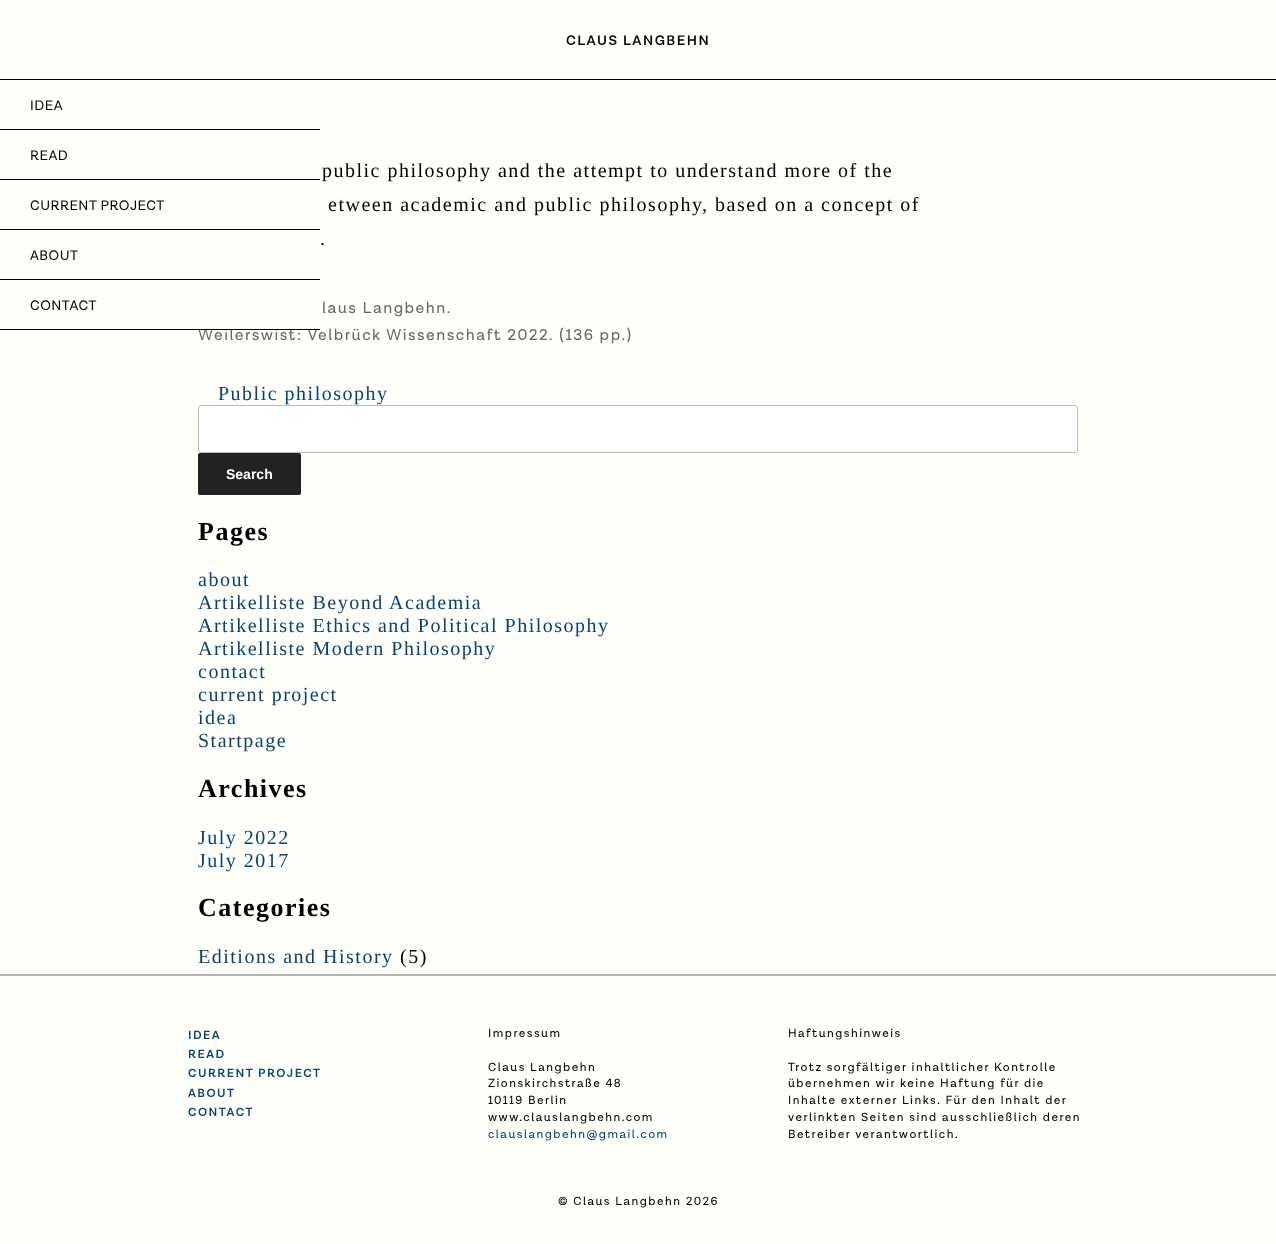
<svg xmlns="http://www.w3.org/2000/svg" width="1276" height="1244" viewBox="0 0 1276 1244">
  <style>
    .t1 { font: 600 14px 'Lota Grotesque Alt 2'; letter-spacing: 1.5px; fill: #000; }
    .t2 { font: 14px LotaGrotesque; letter-spacing: 0.5px; fill: #000; }
    .t3 { font: 16px LotaGrotesque; letter-spacing: 1.5px; fill: #666; }
    .t4 { font: 20px Liberation Serif; letter-spacing: 1.5px; fill: #000; }
    .t5 { font: 20px Liberation Serif; letter-spacing: 1.5px; fill: #054375; }
    .t6 { font: bold 14px Liberation Sans; fill: #fff; }
    .t7 { font: bold 26px Liberation Serif; letter-spacing: 1.5px; fill: #000; }
    .t8 { font: 600 12px 'Lota Grotesque Alt 2'; letter-spacing: 1.5px; fill: #054375; }
    .t9 { font: 12px LotaGrotesque; letter-spacing: 1.5px; fill: #000; }
    .t10 { font: 12px LotaGrotesque; letter-spacing: 1.5px; fill: #054375; }
  </style>
  <rect width="100%" height="100%" fill="#fffff9"/>
  <rect x="0" y="79" width="1276" height="1" fill="#000"/>
  <text x="566" y="45" class="t1">CLAUS LANGBEHN</text>
  <rect x="0" y="129" width="320" height="1" fill="#000"/>
  <text x="30" y="110" class="t2">IDEA</text>
  <rect x="0" y="179" width="320" height="1" fill="#000"/>
  <text x="30" y="160" class="t2">READ</text>
  <rect x="0" y="229" width="320" height="1" fill="#000"/>
  <text x="30" y="210" class="t2">CURRENT PROJECT</text>
  <rect x="0" y="279" width="320" height="1" fill="#000"/>
  <text x="30" y="260" class="t2">ABOUT</text>
  <text x="198" y="340" class="t3">Weilerswist: Velbrück Wissenschaft 2022. (136 pp.)</text>
  <rect x="225" y="328" width="52" height="1" fill="#fffff9"/>
  <rect x="0" y="329" width="320" height="1" fill="#000"/>
  <text x="30" y="310" class="t2">CONTACT</text>
  <text x="322" y="177" class="t4">public philosophy and the attempt to understand more of the</text>
  <text x="328" y="211" class="t4">etween academic and public philosophy, based on a concept of</text>
  <text x="320" y="245" class="t4">.</text>
  <text x="322" y="313" class="t3">laus Langbehn.</text>
  <text x="218" y="400" class="t5">Public philosophy</text>
  <rect x="198.5" y="405.5" width="879" height="47" rx="2.5" fill="#fff" stroke="#bbb"/>
  <rect x="198" y="453" width="103" height="42" rx="2" fill="#222"/>
  <text x="226" y="479" class="t6">Search</text>
  <text x="198" y="540" class="t7">Pages</text>
  <text x="198" y="586" class="t5">about</text>
  <text x="198" y="609" class="t5">Artikelliste Beyond Academia</text>
  <text x="198" y="632" class="t5">Artikelliste Ethics and Political Philosophy</text>
  <text x="198" y="655" class="t5">Artikelliste Modern Philosophy</text>
  <text x="198" y="678" class="t5">contact</text>
  <text x="198" y="701" class="t5">current project</text>
  <text x="198" y="724" class="t5">idea</text>
  <text x="198" y="747" class="t5">Startpage</text>
  <text x="198" y="797" class="t7">Archives</text>
  <text x="198" y="844" class="t5">July 2022</text>
  <text x="198" y="867" class="t5">July 2017</text>
  <text x="198" y="916" class="t7">Categories</text>
  <text x="198" y="963" class="t5">Editions and History</text>
  <text x="400" y="963" class="t4">(5)</text>
  <rect x="0" y="974" width="1276" height="2" fill="#b3b3b3"/>
  <text x="188" y="1039" class="t8">IDEA</text>
  <text x="188" y="1058" class="t8">READ</text>
  <text x="188" y="1077" class="t8">CURRENT PROJECT</text>
  <text x="188" y="1097" class="t8">ABOUT</text>
  <text x="188" y="1116" class="t8">CONTACT</text>
  <text x="488" y="1037" class="t9">Impressum</text>
  <text x="488" y="1071" class="t9">Claus Langbehn</text>
  <text x="488" y="1087" class="t9">Zionskirchstraße 48</text>
  <text x="488" y="1104" class="t9">10119 Berlin</text>
  <text x="488" y="1121" class="t9">www.clauslangbehn.com</text>
  <text x="488" y="1138" class="t10">clauslangbehn@gmail.com</text>
  <text x="788" y="1037" class="t9">Haftungshinweis</text>
  <text x="788" y="1071" class="t9">Trotz sorgfältiger inhaltlicher Kontrolle</text>
  <text x="788" y="1087" class="t9">übernehmen wir keine Haftung für die</text>
  <text x="788" y="1104" class="t9">Inhalte externer Links. Für den Inhalt der</text>
  <text x="788" y="1121" class="t9">verlinkten Seiten sind ausschließlich deren</text>
  <text x="788" y="1138" class="t9">Betreiber verantwortlich.</text>
  <text x="558" y="1205" class="t9">© Claus Langbehn 2026</text>
</svg>
